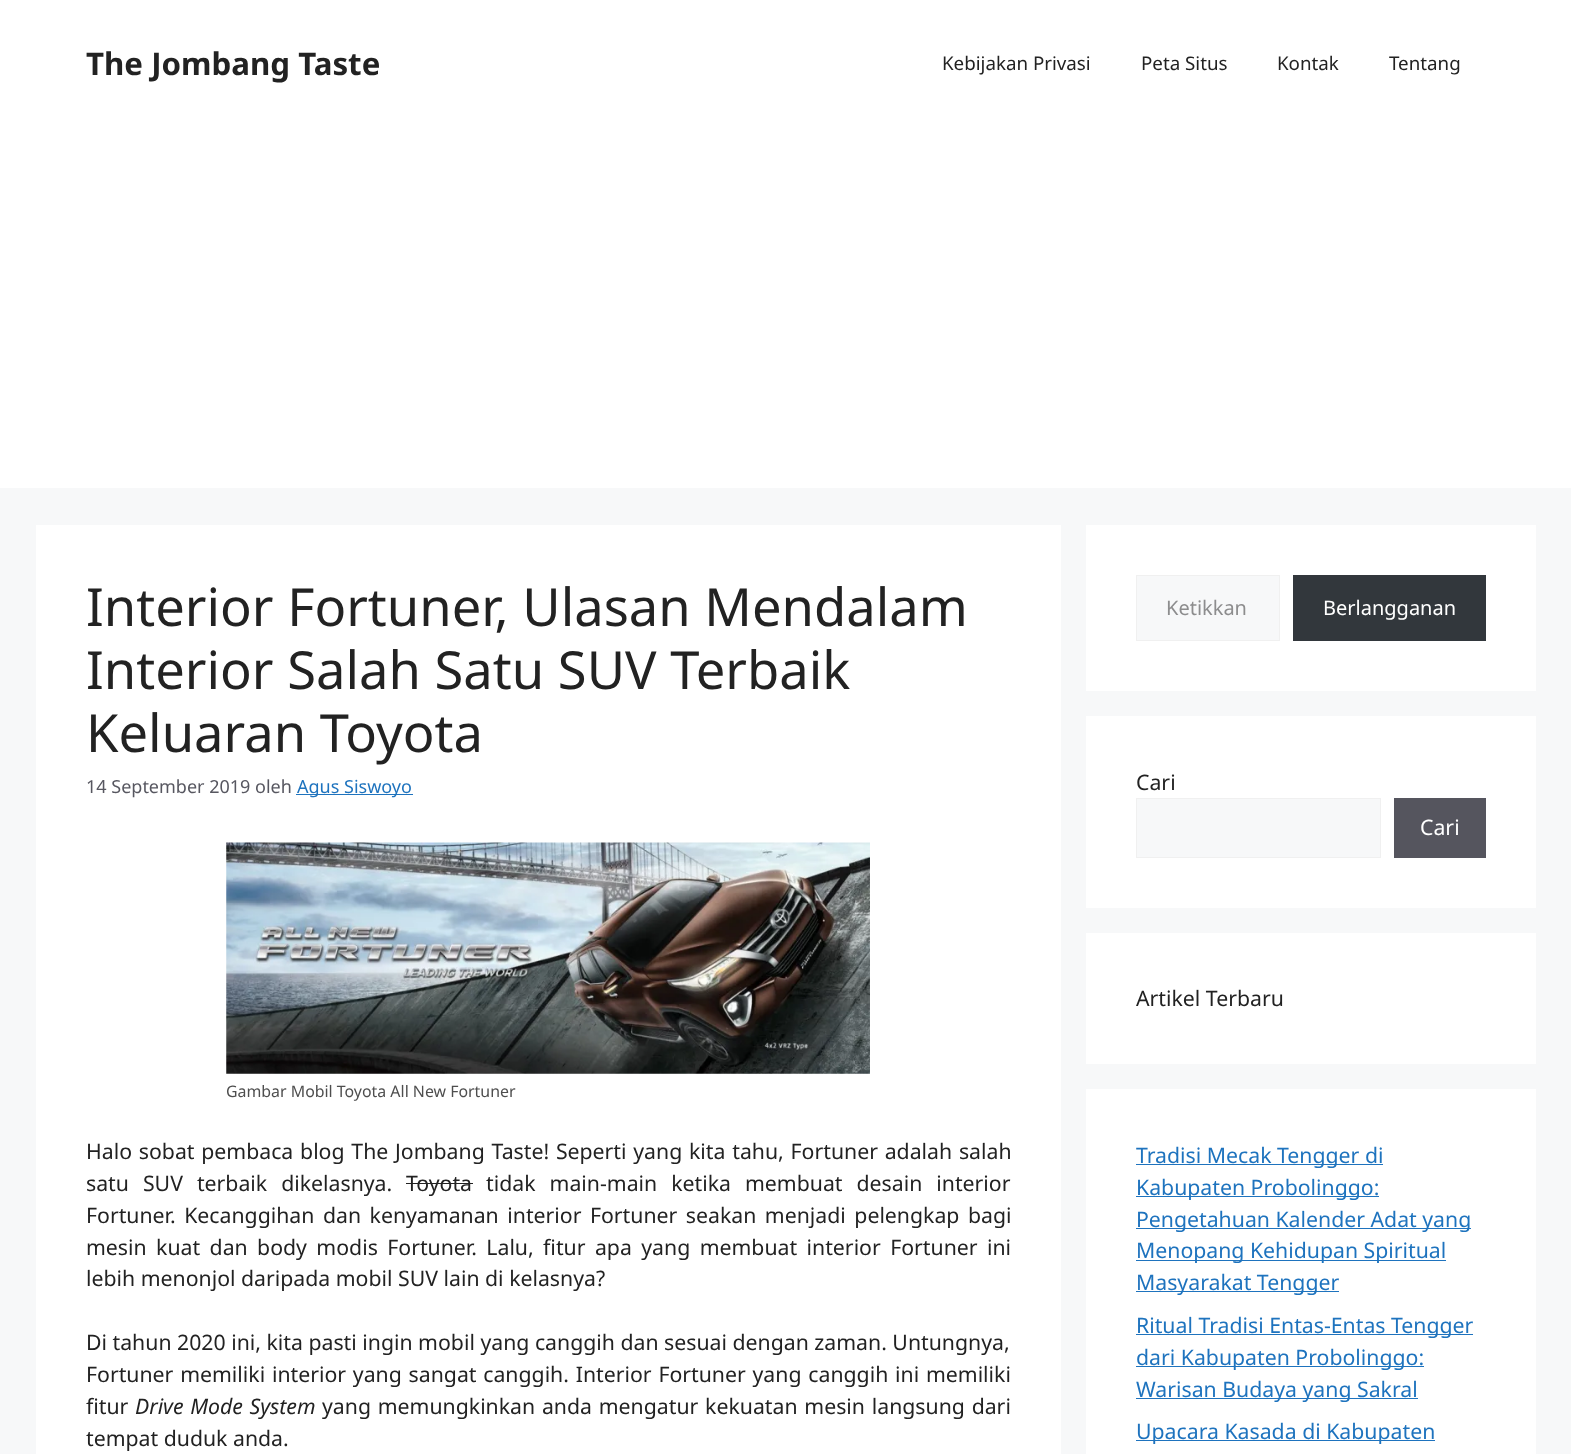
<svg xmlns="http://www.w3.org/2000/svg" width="1571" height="1454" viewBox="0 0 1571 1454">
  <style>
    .t1 { font: bold 31.25px Noto Sans; fill: #222; }
    .t2 { font: 18.75px Noto Sans; fill: #222; }
    .t3 { font: 52.5px Noto Sans; fill: #222; }
    .t4 { font: 18px Noto Sans; fill: #575760; }
    .t5 { font: 18px Noto Sans; fill: #1e73be; }
    .t6 { font: 15.9px Noto Sans; fill: #4e4e4e; }
    .t7 { font: 21.25px Noto Sans; fill: #222; }
    .t8 { font: italic 21.25px Noto Sans; fill: #222; }
    .t9 { font: 20px Noto Sans; fill: #8d8d8e; }
    .t10 { font: 20px Noto Sans; fill: #fff; }
    .t11 { font: 21.25px Noto Sans; fill: #fff; }
    .t12 { font: 21.25px Noto Sans; fill: #1e73be; }
  </style>
  <rect width="100%" height="100%" fill="#f7f8f9"/>
  <rect x="0" y="0" width="1571" height="488" fill="#fff"/>
  <text x="86" y="75" class="t1">The Jombang Taste</text>
  <text x="942" y="70" class="t2">Kebijakan Privasi</text>
  <text x="1141" y="70" class="t2">Peta Situs</text>
  <text x="1277" y="70" class="t2">Kontak</text>
  <text x="1389" y="70" class="t2">Tentang</text>
  <rect x="36" y="525" width="1025" height="929" fill="#fff"/>
  <text x="86" y="626" class="t3">Interior Fortuner, Ulasan Mendalam</text>
  <text x="86" y="689" class="t3">Interior Salah Satu SUV Terbaik</text>
  <text x="86" y="752" class="t3">Keluaran Toyota</text>
  <text x="86" y="793" class="t4">14 September 2019 oleh</text>
  <rect x="296" y="794" width="117" height="1" fill="#1e73be"/>
  <text x="297" y="793" class="t5">Agus Siswoyo</text>
  <image x="226" y="842" width="644" height="232" href="images/1.png"/>
  <text x="226" y="1097" class="t6">Gambar Mobil Toyota All New Fortuner</text>
  <text x="86" y="1159" word-spacing="1.25" class="t7">Halo sobat pembaca blog The Jombang Taste! Seperti yang kita tahu, Fortuner adalah salah</text>
  <text x="86" y="1191" word-spacing="8.5" class="t7">satu SUV terbaik dikelasnya.</text>
  <text x="406" y="1191" class="t7">Toyota</text>
  <rect x="406" y="1183" width="67" height="1" fill="#222"/>
  <text x="486" y="1191" word-spacing="8.5" class="t7">tidak main-main ketika membuat desain interior</text>
  <text x="86" y="1223" word-spacing="3" class="t7">Fortuner. Kecanggihan dan kenyamanan interior Fortuner seakan menjadi pelengkap bagi</text>
  <text x="86" y="1255" word-spacing="3.9" class="t7">mesin kuat dan body modis Fortuner. Lalu, fitur apa yang membuat interior Fortuner ini</text>
  <text x="86" y="1286" class="t7">lebih menonjol daripada mobil SUV lain di kelasnya?</text>
  <text x="86" y="1350" class="t7">Di tahun 2020 ini, kita pasti ingin mobil yang canggih dan sesuai dengan zaman. Untungnya,</text>
  <text x="86" y="1382" word-spacing="1.25" class="t7">Fortuner memiliki interior yang sangat canggih. Interior Fortuner yang canggih ini memiliki</text>
  <text x="86" y="1414" class="t7">fitur</text>
  <text x="135" y="1414" word-spacing="1" class="t8">Drive Mode System</text>
  <text x="322" y="1414" word-spacing="1.25" class="t7">yang memungkinkan anda mengatur kekuatan mesin langsung dari</text>
  <text x="86" y="1446" class="t7">tempat duduk anda.</text>
  <rect x="1086" y="525" width="450" height="166" fill="#fff"/>
  <rect x="1136.5" y="575.5" width="143" height="65" fill="#f7f8f9" stroke="#f0f0f0"/>
  <text x="1166" y="615" class="t9">Ketikkan</text>
  <rect x="1293" y="575" width="193" height="66" fill="#32373c"/>
  <text x="1323" y="615" class="t10">Berlangganan</text>
  <rect x="1086" y="716" width="450" height="192" fill="#fff"/>
  <text x="1136" y="790" class="t7">Cari</text>
  <rect x="1136.5" y="798.5" width="244" height="59" fill="#f7f8f9" stroke="#f0f0f0"/>
  <rect x="1394" y="798" width="92" height="60" fill="#55555e"/>
  <text x="1420" y="835" class="t11">Cari</text>
  <rect x="1086" y="933" width="450" height="131" fill="#fff"/>
  <text x="1136" y="1006" class="t7">Artikel Terbaru</text>
  <rect x="1086" y="1089" width="450" height="365" fill="#fff"/>
  <rect x="1136" y="1164" width="247" height="1" fill="#1e73be"/>
  <text x="1136" y="1163" class="t12">Tradisi Mecak Tengger di</text>
  <rect x="1136" y="1196" width="243" height="1" fill="#1e73be"/>
  <text x="1136" y="1195" class="t12">Kabupaten Probolinggo:</text>
  <rect x="1136" y="1228" width="335" height="1" fill="#1e73be"/>
  <text x="1136" y="1227" class="t12">Pengetahuan Kalender Adat yang</text>
  <rect x="1136" y="1260" width="310" height="1" fill="#1e73be"/>
  <text x="1136" y="1258" class="t12">Menopang Kehidupan Spiritual</text>
  <rect x="1136" y="1291" width="203" height="1" fill="#1e73be"/>
  <text x="1136" y="1290" class="t12">Masyarakat Tengger</text>
  <rect x="1136" y="1334" width="337" height="1" fill="#1e73be"/>
  <text x="1136" y="1333" class="t12">Ritual Tradisi Entas-Entas Tengger</text>
  <rect x="1136" y="1366" width="288" height="1" fill="#1e73be"/>
  <text x="1136" y="1365" class="t12">dari Kabupaten Probolinggo:</text>
  <rect x="1136" y="1398" width="282" height="1" fill="#1e73be"/>
  <text x="1136" y="1397" class="t12">Warisan Budaya yang Sakral</text>
  <rect x="1136" y="1440" width="299" height="1" fill="#1e73be"/>
  <text x="1136" y="1439" class="t12">Upacara Kasada di Kabupaten</text>
</svg>
